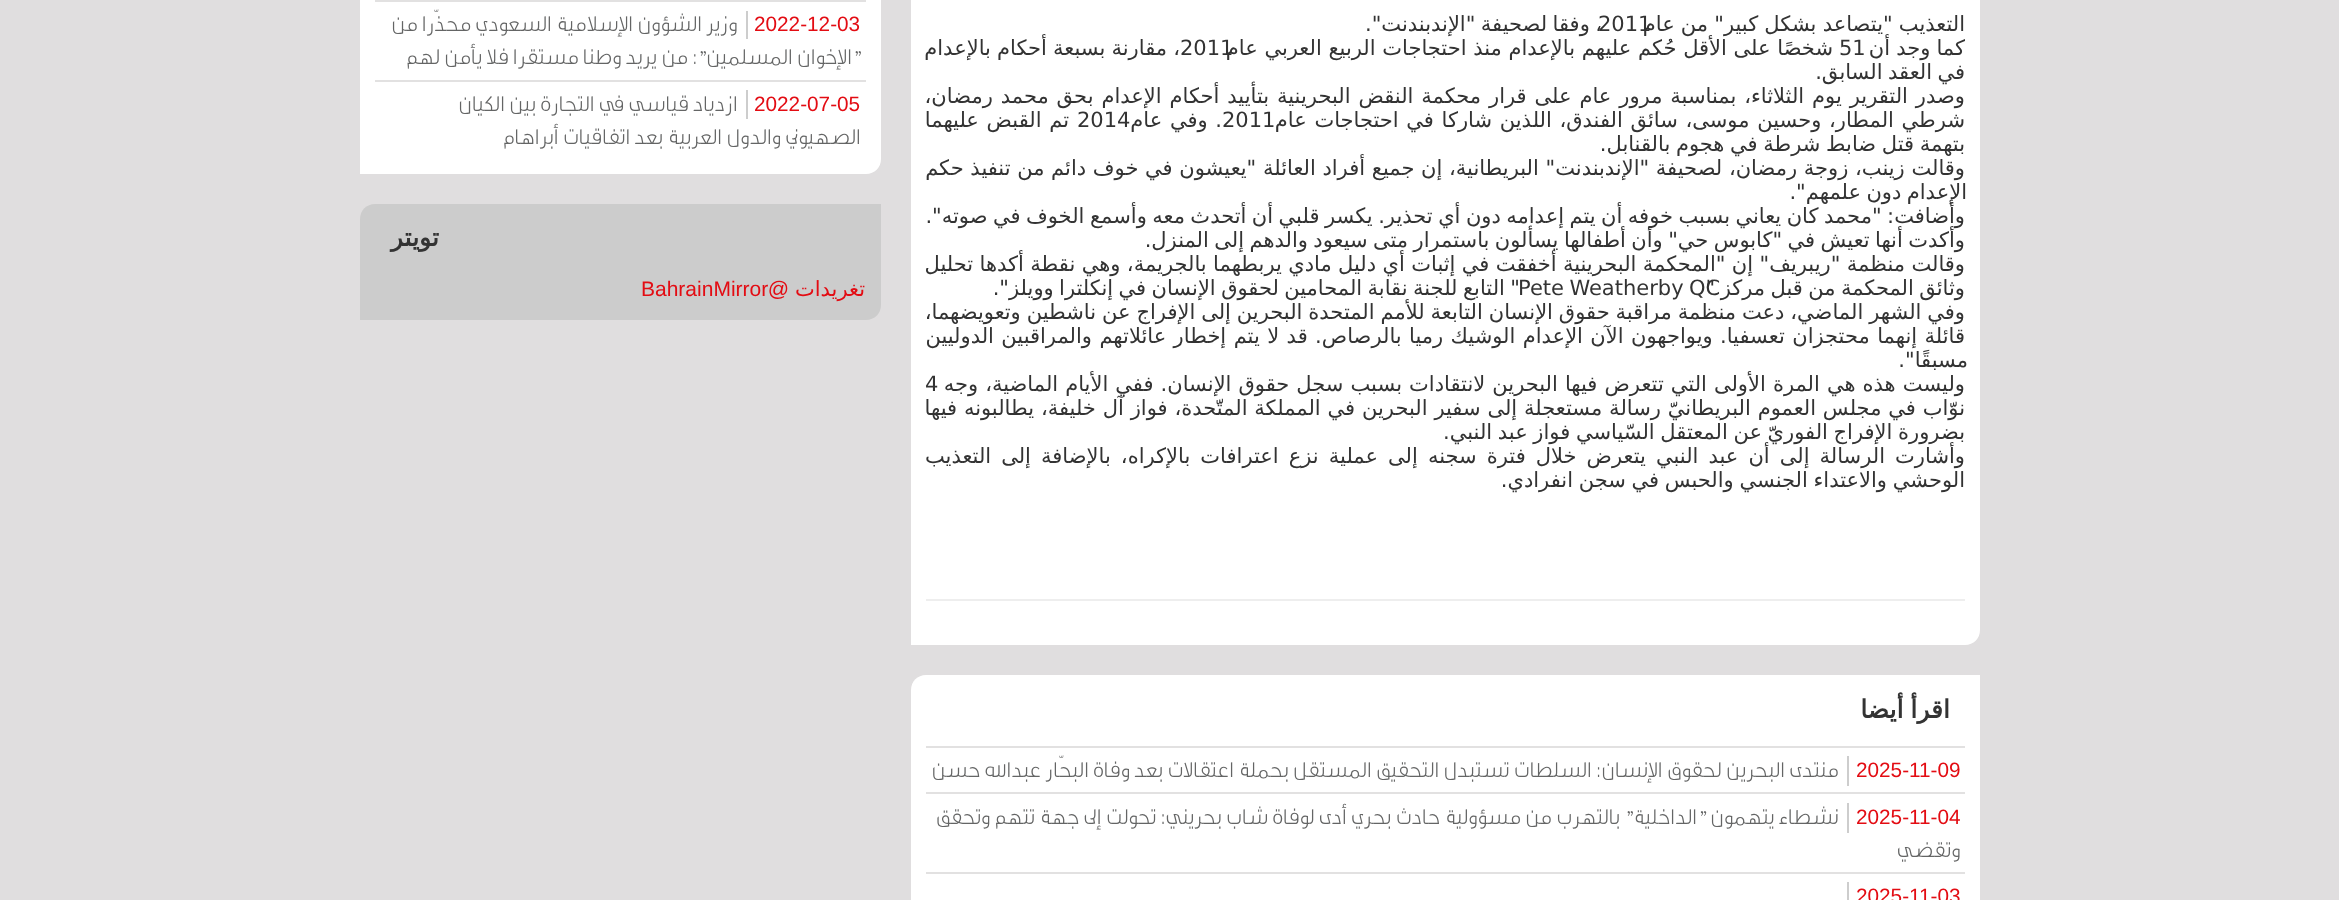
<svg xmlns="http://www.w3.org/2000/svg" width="2339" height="900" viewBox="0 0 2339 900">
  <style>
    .t1 { font: 21px DejaVu Sans; direction: rtl; fill: #333; }
    .t2 { font: 21px DejaVu Sans; fill: #333; }
    .t3 { font: bold 25px DejaVu Sans; direction: rtl; fill: #333; }
    .t4 { font: 20.75px Liberation Sans; fill: #e30c13; }
    .t5 { font: 23.1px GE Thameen; direction: rtl; fill: #646565; }
    .t6 { font: 21px DejaVu Sans; direction: rtl; fill: #e30c13; }
    .t7 { font: 21px Liberation Sans; direction: rtl; fill: #e30c13; }
    .t8 { font: 21px Liberation Sans; fill: #e30c13; }
  </style>
  <rect width="100%" height="100%" fill="#e0dedf"/>
  <path d="M926-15H1980V630C1980 638.5 1973.5 645 1965 645H911V0C911-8.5 917.5-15 926-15Z" fill="#fff"/>
  <text x="1602" y="31" word-spacing="-1.25" class="t1">، وفقا لصحيفة "الإندبندنت".</text>
  <text x="1598" y="31" class="t2">2011</text>
  <text x="1965" y="31" word-spacing="-0.5" class="t1">التعذيب "يتصاعد بشكل كبير" من عام</text>
  <text x="1965" y="55" word-spacing="-0.5" class="t1">كما وجد أن</text>
  <text x="1839" y="55" class="t2">51</text>
  <text x="1180" y="55" class="t2">2011</text>
  <text x="1833" y="55" class="t1">شخصًا على الأقل حُكم عليهم بالإعدام منذ احتجاجات الربيع العربي عام</text>
  <text x="1180" y="55" word-spacing="-0.5" class="t1">، مقارنة بسبعة أحكام بالإعدام</text>
  <text x="1965" y="79" word-spacing="-1.25" class="t1">في العقد السابق.</text>
  <text x="1965" y="103" word-spacing="1.25" class="t1">وصدر التقرير يوم الثلاثاء، بمناسبة مرور عام على قرار محكمة النقض البحرينية بتأييد أحكام الإعدام بحق محمد رمضان،</text>
  <text x="1965" y="127" word-spacing="1" class="t1">شرطي المطار، وحسين موسى، سائق الفندق، اللذين شاركا في احتجاجات عام</text>
  <text x="1222" y="127" class="t2">2011</text>
  <text x="1222" y="127" word-spacing="1" class="t1">. وفي عام</text>
  <text x="1077" y="127" class="t2">2014</text>
  <text x="1069" y="127" word-spacing="1" class="t1">تم القبض عليهما</text>
  <text x="1965" y="151" word-spacing="-1" class="t1">بتهمة قتل ضابط شرطة في هجوم بالقنابل.</text>
  <text x="1965" y="175" class="t1">وقالت زينب، زوجة رمضان، لصحيفة "الإندبندنت" البريطانية، إن جميع أفراد العائلة "يعيشون في خوف دائم من تنفيذ حكم</text>
  <text x="1967" y="199" word-spacing="-1.25" class="t1">الإعدام دون علمهم".</text>
  <text x="1965" y="223" word-spacing="-1.2" class="t1">وأضافت: "محمد كان يعاني بسبب خوفه أن يتم إعدامه دون أي تحذير. يكسر قلبي أن أتحدث معه وأسمع الخوف في صوته".</text>
  <text x="1965" y="247" word-spacing="-1.25" class="t1">وأكدت أنها تعيش في "كابوس حي" وأن أطفالها يسألون باستمرار متى سيعود والدهم إلى المنزل.</text>
  <text x="1965" y="271" word-spacing="-0.25" class="t1">وقالت منظمة "ريبريف" إن "المحكمة البحرينية أخفقت في إثبات أي دليل مادي يربطهما بالجريمة، وهي نقطة أكدها تحليل</text>
  <text x="1520" y="295" word-spacing="-1.25" class="t1">" التابع للجنة نقابة المحامين لحقوق الإنسان في إنكلترا وويلز".</text>
  <text x="1518" y="295" word-spacing="-1.25" class="t2">Pete Weatherby QC</text>
  <text x="1965" y="295" word-spacing="-1.25" class="t1">وثائق المحكمة من قبل مركز "</text>
  <text x="1965" y="319" word-spacing="-0.75" class="t1">وفي الشهر الماضي، دعت منظمة مراقبة حقوق الإنسان التابعة للأمم المتحدة البحرين إلى الإفراج عن ناشطين وتعويضهما،</text>
  <text x="1965" y="343" word-spacing="0.75" class="t1">قائلة إنهما محتجزان تعسفيا. ويواجهون الآن الإعدام الوشيك رميا بالرصاص. قد لا يتم إخطار عائلاتهم والمراقبين الدوليين</text>
  <text x="1968" y="367" class="t1">مسبقًا".</text>
  <text x="1965" y="391" word-spacing="0.4" class="t1">وليست هذه هي المرة الأولى التي تتعرض فيها البحرين لانتقادات بسبب سجل حقوق الإنسان. ففي الأيام الماضية، وجه</text>
  <text x="925" y="391" class="t2">4</text>
  <text x="1965" y="415" word-spacing="0.2" class="t1">نوّاب في مجلس العموم البريطانيّ رسالة مستعجلة إلى سفير البحرين في المملكة المتّحدة، فواز آل خليفة، يطالبونه فيها</text>
  <text x="1965" y="439" word-spacing="-1" class="t1">بضرورة الإفراج الفوريّ عن المعتقل السّياسي فواز عبد النبي.</text>
  <text x="1965" y="463" word-spacing="3.4" class="t1">وأشارت الرسالة إلى أن عبد النبي يتعرض خلال فترة سجنه إلى عملية نزع اعترافات بالإكراه، بالإضافة إلى التعذيب</text>
  <text x="1965" y="487" word-spacing="-1" class="t1">الوحشي والاعتداء الجنسي والحبس في سجن انفرادي.</text>
  <rect x="926" y="599" width="1039" height="2" fill="#eee"/>
  <path d="M926 675H1980V900C1980 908.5 1973.5 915 1965 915H911V690C911 681.5 917.5 675 926 675Z" fill="#fff"/>
  <text x="1950" y="718" word-spacing="-1" class="t3">اقرأ أيضا</text>
  <rect x="926" y="746" width="1039" height="2" fill="#e2e1e1"/>
  <rect x="1847" y="756" width="2" height="30" fill="#cdcdcd"/>
  <text x="1856" y="777" class="t4">2025-11-09</text>
  <text x="1839" y="777" class="t5">منتدى البحرين لحقوق الإنسان: السلطات تستبدل التحقيق المستقل بحملة اعتقالات بعد وفاة البحّار عبدالله حسن</text>
  <rect x="926" y="792" width="1039" height="2" fill="#e2e1e1"/>
  <rect x="1847" y="803" width="2" height="30" fill="#cdcdcd"/>
  <text x="1856" y="824" class="t4">2025-11-04</text>
  <text x="1839" y="824" class="t5">نشطاء يتهمون "الداخلية" بالتهرب من مسؤولية حادث بحري أدى لوفاة شاب بحريني: تحولت إلى جهة تتهم وتحقق</text>
  <text x="1961" y="857" class="t5">وتقضي</text>
  <rect x="926" y="872" width="1039" height="2" fill="#e2e1e1"/>
  <rect x="1847" y="882" width="2" height="18" fill="#cdcdcd"/>
  <text x="1856" y="903" class="t4">2025-11-03</text>
  <path d="M375-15H881V159C881 167.5 874.5 174 866 174H360V0C360-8.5 366.5-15 375-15Z" fill="#fff"/>
  <rect x="375" y="0" width="491" height="2" fill="#e2e1e1"/>
  <rect x="746" y="11" width="2" height="28" fill="#cdcdcd"/>
  <text x="754" y="31" class="t4">2022-12-03</text>
  <text x="738" y="31" class="t5">وزير الشؤون الإسلامية السعودي محذّرا من</text>
  <text x="861" y="64" class="t5">"الإخوان المسلمين": من يريد وطنا مستقرا فلا يأمن لهم</text>
  <rect x="375" y="80" width="491" height="2" fill="#e2e1e1"/>
  <rect x="746" y="90" width="2" height="29" fill="#cdcdcd"/>
  <text x="754" y="111" class="t4">2022-07-05</text>
  <text x="738" y="111" class="t5">ازدياد قياسي في التجارة بين الكيان</text>
  <text x="861" y="144" class="t5">الصهيوني والدول العربية بعد اتفاقيات أبراهام</text>
  <path d="M375 204H881V305C881 313.5 874.5 320 866 320H360V219C360 210.5 366.5 204 375 204Z" fill="#ccc"/>
  <text x="439" y="246" class="t3">تويتر</text>
  <text x="865" y="296" class="t6">تغريدات</text>
  <text x="789" y="296" class="t7">@</text>
  <text x="641" y="296" class="t8">BahrainMirror</text>
</svg>
